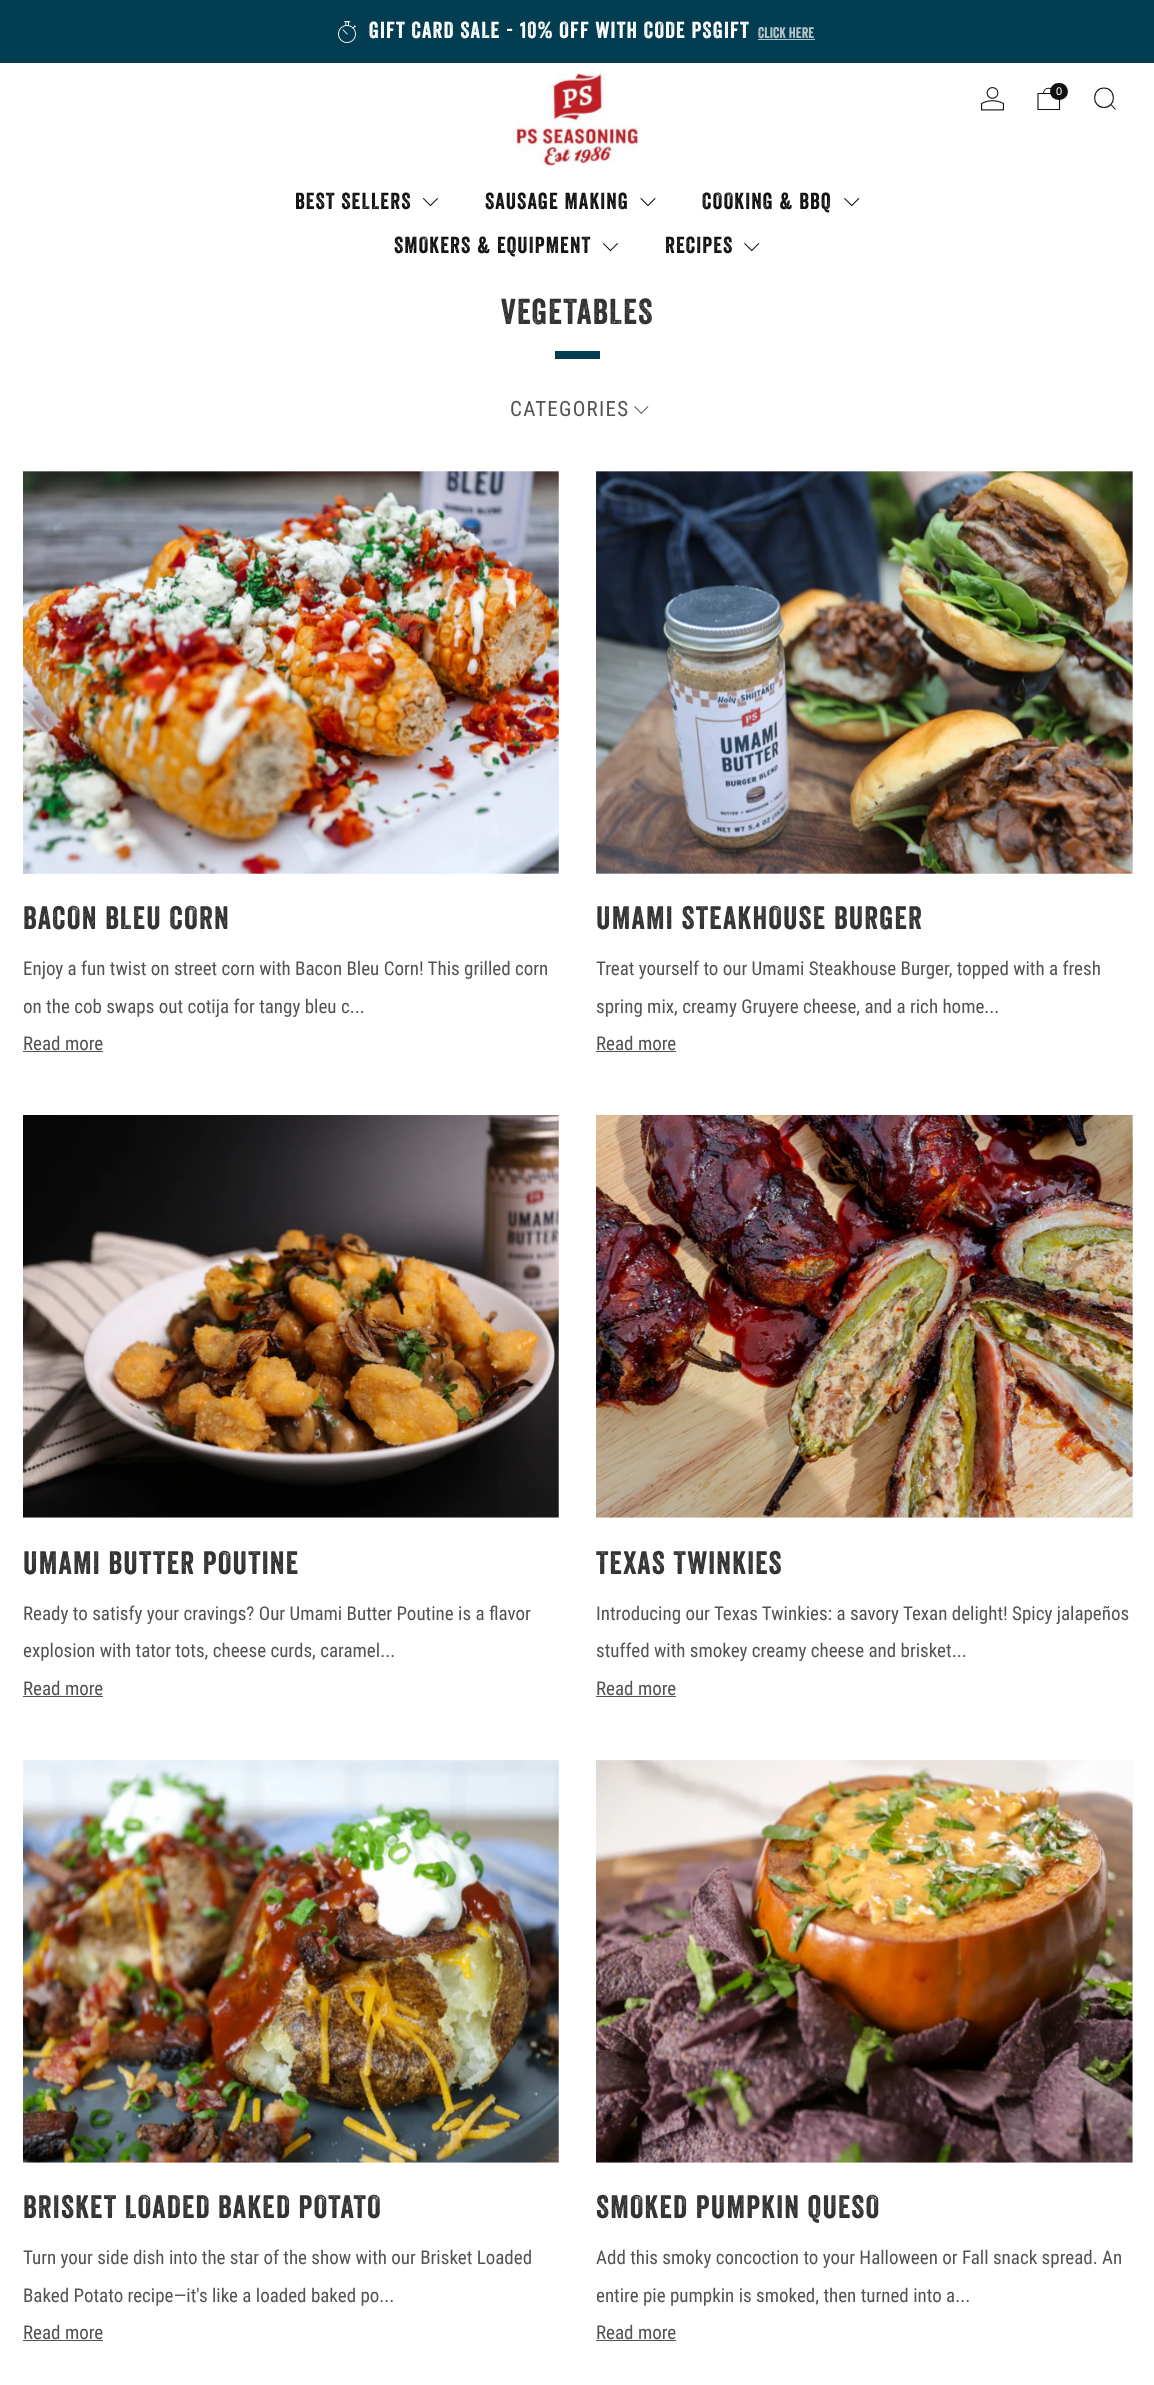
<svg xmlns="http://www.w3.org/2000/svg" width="1154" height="2385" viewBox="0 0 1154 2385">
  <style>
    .t1 { font: 22.5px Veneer; letter-spacing: 1.1px; fill: #fff; }
    .t2 { font: 15px Veneer; fill: #b3c5cb; }
    .t3 { font: 11px Liberation Sans; fill: #fff; }
    .t4 { font: 22.5px Veneer; letter-spacing: 1.1px; fill: #111; }
    .t5 { font: 35px Veneer; letter-spacing: 1.25px; fill: #333; }
    .t6 { font: 21px Roboto Condensed; letter-spacing: 1.25px; fill: #535353; }
    .t7 { font: 31.5px Veneer; letter-spacing: 1.25px; fill: #333; }
    .t8 { font: 19px Roboto Condensed; fill: #535353; }
  </style>
  <rect width="100%" height="100%" fill="#fff"/>
  <rect x="0" y="0" width="1154" height="63" fill="#033d51"/>
  <image x="338" y="21" width="18" height="22" href="images/1.png"/>
  <text x="369" y="38" class="t1">GIFT CARD SALE - 10% OFF WITH CODE PSGIFT</text>
  <text x="758" y="38" class="t2">Click here</text>
  <rect x="758" y="39" width="57" height="1" fill="#b3c5cb"/>
  <image x="516" y="73" width="123" height="93" href="images/2.png"/>
  <image x="981" y="87" width="23" height="24" href="images/3.png"/>
  <path d="M1038 93.5H1059.5V109.5H1038ZM1054 93.5C1054 86.5 1043.5 86.5 1043.5 93.5" fill="none" stroke="#111" stroke-width="1.1"/>
  <rect x="1050" y="83" width="18" height="17" rx="8.5" fill="#111"/>
  <text x="1056" y="95" class="t3">0</text>
  <path d="M1104 107.5C1116.5 107.5 1116.5 88 1104 88C1091.5 88 1091.5 107.5 1104 107.5ZM1111 104.5L1115.5 109.5" fill="none" stroke="#111" stroke-width="1.1"/>
  <text x="295" y="209" class="t4">BEST SELLERS</text>
  <image x="422" y="198" width="16" height="9" href="images/4.png"/>
  <text x="485" y="209" class="t4">SAUSAGE MAKING</text>
  <image x="640" y="198" width="16" height="9" href="images/5.png"/>
  <text x="702" y="209" class="t4">COOKING &amp; BBQ</text>
  <image x="844" y="198" width="16" height="9" href="images/6.png"/>
  <text x="394" y="253" class="t4">SMOKERS &amp; EQUIPMENT</text>
  <image x="602" y="243" width="16" height="9" href="images/4.png"/>
  <text x="665" y="253" class="t4">RECIPES</text>
  <image x="744" y="243" width="16" height="9" href="images/6.png"/>
  <text x="501" y="324" class="t5">VEGETABLES</text>
  <rect x="555" y="351" width="45" height="8" fill="#033d51"/>
  <text x="510" y="416" class="t6">CATEGORIES</text>
  <image x="634" y="406" width="15" height="8" href="images/7.png"/>
  <rect x="23" y="471" width="536" height="403" fill="#f2f2f2"/>
  <image x="23" y="471" width="536" height="403" href="images/8.png"/>
  <text x="23" y="929" class="t7">BACON BLEU CORN</text>
  <text x="23" y="975" class="t8">Enjoy a fun twist on street corn with Bacon Bleu Corn! This grilled corn</text>
  <text x="23" y="1013" class="t8">on the cob swaps out cotija for tangy bleu c...</text>
  <text x="23" y="1050" class="t8">Read more</text>
  <rect x="23" y="1051" width="80" height="1" fill="#535353"/>
  <rect x="596" y="471" width="537" height="403" fill="#f2f2f2"/>
  <image x="596" y="471" width="537" height="403" href="images/9.png"/>
  <text x="596" y="929" class="t7">UMAMI STEAKHOUSE BURGER</text>
  <text x="596" y="975" class="t8">Treat yourself to our Umami Steakhouse Burger, topped with a fresh</text>
  <text x="596" y="1013" class="t8">spring mix, creamy Gruyere cheese, and a rich home...</text>
  <text x="596" y="1050" class="t8">Read more</text>
  <rect x="596" y="1051" width="80" height="1" fill="#535353"/>
  <rect x="23" y="1115" width="536" height="403" fill="#f2f2f2"/>
  <image x="23" y="1115" width="536" height="403" href="images/10.png"/>
  <text x="23" y="1574" class="t7">UMAMI BUTTER POUTINE</text>
  <text x="23" y="1620" class="t8">Ready to satisfy your cravings? Our Umami Butter Poutine is a flavor</text>
  <text x="23" y="1657" class="t8">explosion with tator tots, cheese curds, caramel...</text>
  <text x="23" y="1695" class="t8">Read more</text>
  <rect x="23" y="1696" width="80" height="1" fill="#535353"/>
  <rect x="596" y="1115" width="537" height="403" fill="#f2f2f2"/>
  <image x="596" y="1115" width="537" height="403" href="images/11.png"/>
  <text x="596" y="1574" class="t7">TEXAS TWINKIES</text>
  <text x="596" y="1620" class="t8">Introducing our Texas Twinkies: a savory Texan delight! Spicy jalapeños</text>
  <text x="596" y="1657" class="t8">stuffed with smokey creamy cheese and brisket...</text>
  <text x="596" y="1695" class="t8">Read more</text>
  <rect x="596" y="1696" width="80" height="1" fill="#535353"/>
  <rect x="23" y="1760" width="536" height="403" fill="#f2f2f2"/>
  <image x="23" y="1760" width="536" height="403" href="images/12.png"/>
  <text x="23" y="2218" class="t7">BRISKET LOADED BAKED POTATO</text>
  <text x="23" y="2264" class="t8">Turn your side dish into the star of the show with our Brisket Loaded</text>
  <text x="23" y="2302" class="t8">Baked Potato recipe—it's like a loaded baked po...</text>
  <text x="23" y="2339" class="t8">Read more</text>
  <rect x="23" y="2340" width="80" height="1" fill="#535353"/>
  <rect x="596" y="1760" width="537" height="403" fill="#f2f2f2"/>
  <image x="596" y="1760" width="537" height="403" href="images/13.png"/>
  <text x="596" y="2218" class="t7">SMOKED PUMPKIN QUESO</text>
  <text x="596" y="2264" class="t8">Add this smoky concoction to your Halloween or Fall snack spread. An</text>
  <text x="596" y="2302" class="t8">entire pie pumpkin is smoked, then turned into a...</text>
  <text x="596" y="2339" class="t8">Read more</text>
  <rect x="596" y="2340" width="80" height="1" fill="#535353"/>
</svg>
